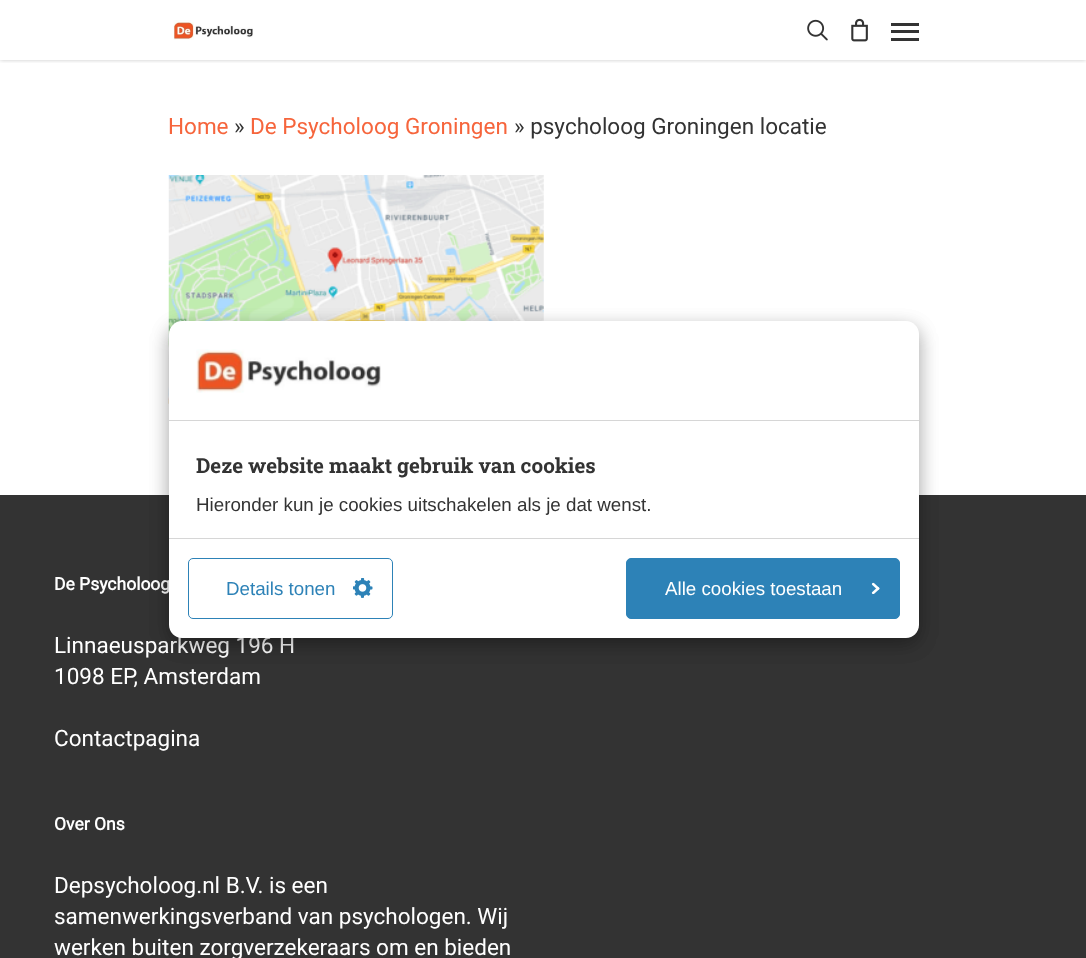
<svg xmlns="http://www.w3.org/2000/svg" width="1086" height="958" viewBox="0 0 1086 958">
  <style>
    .t1 { font: 22.5px Roboto; fill: #f6653c; }
    .t2 { font: 22.5px Roboto; fill: #333; }
    .t3 { font: bold 17.5px Roboto; fill: #fff; }
    .t4 { font: 22.5px Roboto; fill: #fff; }
    .t5 { font: bold 20.6px Roboto Slab; fill: #333; }
    .t6 { font: 18.75px Liberation Sans; fill: #333; }
    .t7 { font: 18.75px Liberation Sans; fill: #2d82b7; }
    .t8 { font: 18.75px Liberation Sans; fill: #fff; }
  </style>
  <defs>
    <clipPath id="clip1"><rect x="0" y="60" width="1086" height="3"/></clipPath>
  </defs>
  <rect width="100%" height="100%" fill="#fff"/>
  <g clip-path="url(#clip1)">
    <rect x="0" y="0" width="1086" height="60" fill="#00000038" filter="blur(2px)"/>
  </g>
  <image x="173" y="20" width="80" height="20" href="images/1.png"/>
  <image x="807" y="19" width="21" height="22" href="images/2.png"/>
  <image x="851" y="18" width="17" height="24" href="images/3.png"/>
  <rect x="891" y="23" width="28" height="3" fill="#333"/>
  <rect x="891" y="38" width="28" height="3" fill="#333"/>
  <rect x="891" y="30" width="28" height="3" fill="#333"/>
  <text x="168" y="134" class="t1">Home</text>
  <text x="234" y="134" class="t2">»</text>
  <text x="250" y="134" class="t1">De Psycholoog Groningen</text>
  <text x="514" y="134" class="t2">» psycholoog Groningen locatie</text>
  <image x="168" y="175" width="376" height="229" href="images/4.png"/>
  <rect x="0" y="495" width="1086" height="463" fill="#333"/>
  <text x="54" y="590" class="t3">De Psycholoog</text>
  <text x="54" y="653" class="t4">Linnaeusparkweg 196 H</text>
  <text x="54" y="684" class="t4">1098 EP, Amsterdam</text>
  <text x="54" y="746" class="t4">Contactpagina</text>
  <text x="54" y="830" class="t3">Over Ons</text>
  <text x="54" y="893" class="t4">Depsycholoog.nl B.V. is een</text>
  <text x="54" y="924" class="t4">samenwerkingsverband van psychologen. Wij</text>
  <text x="54" y="955" class="t4">werken buiten zorgverzekeraars om en bieden</text>
  <rect x="169" y="328" width="750" height="316" rx="13" fill="#00000030" filter="blur(9.5px)"/>
  <rect x="169" y="328" width="750" height="316" rx="13" fill="#00000033" filter="blur(9.5px)"/>
  <path d="M182 321H906C913 321 919 327 919 334V421H169V334C169 327 175 321 182 321Z" fill="#fff"/>
  <rect x="169" y="420" width="750" height="1" fill="#d6d6d6"/>
  <image x="196" y="349" width="185" height="44" href="images/5.png"/>
  <rect x="169" y="421" width="750" height="117" fill="#fff"/>
  <text x="196" y="473" class="t5">Deze website maakt gebruik van cookies</text>
  <text x="196" y="511" class="t6">Hieronder kun je cookies uitschakelen als je dat wenst.</text>
  <path d="M169 538H919V625C919 632 913 638 906 638H182C175 638 169 632 169 625Z" fill="#fff"/>
  <rect x="169" y="538" width="750" height="1" fill="#d6d6d6"/>
  <rect x="188.5" y="558.5" width="204" height="60" rx="4.5" fill="none" stroke="#2d82b7"/>
  <text x="226" y="595" class="t7">Details tonen</text>
  <image x="353" y="578" width="20" height="20" href="images/6.png"/>
  <rect x="626.5" y="558.5" width="273" height="60" rx="4.5" fill="#2d82b7" stroke="#2d82b7"/>
  <text x="665" y="595" class="t8">Alle cookies toestaan</text>
  <image x="871" y="582" width="9" height="12" href="images/7.png"/>
</svg>
